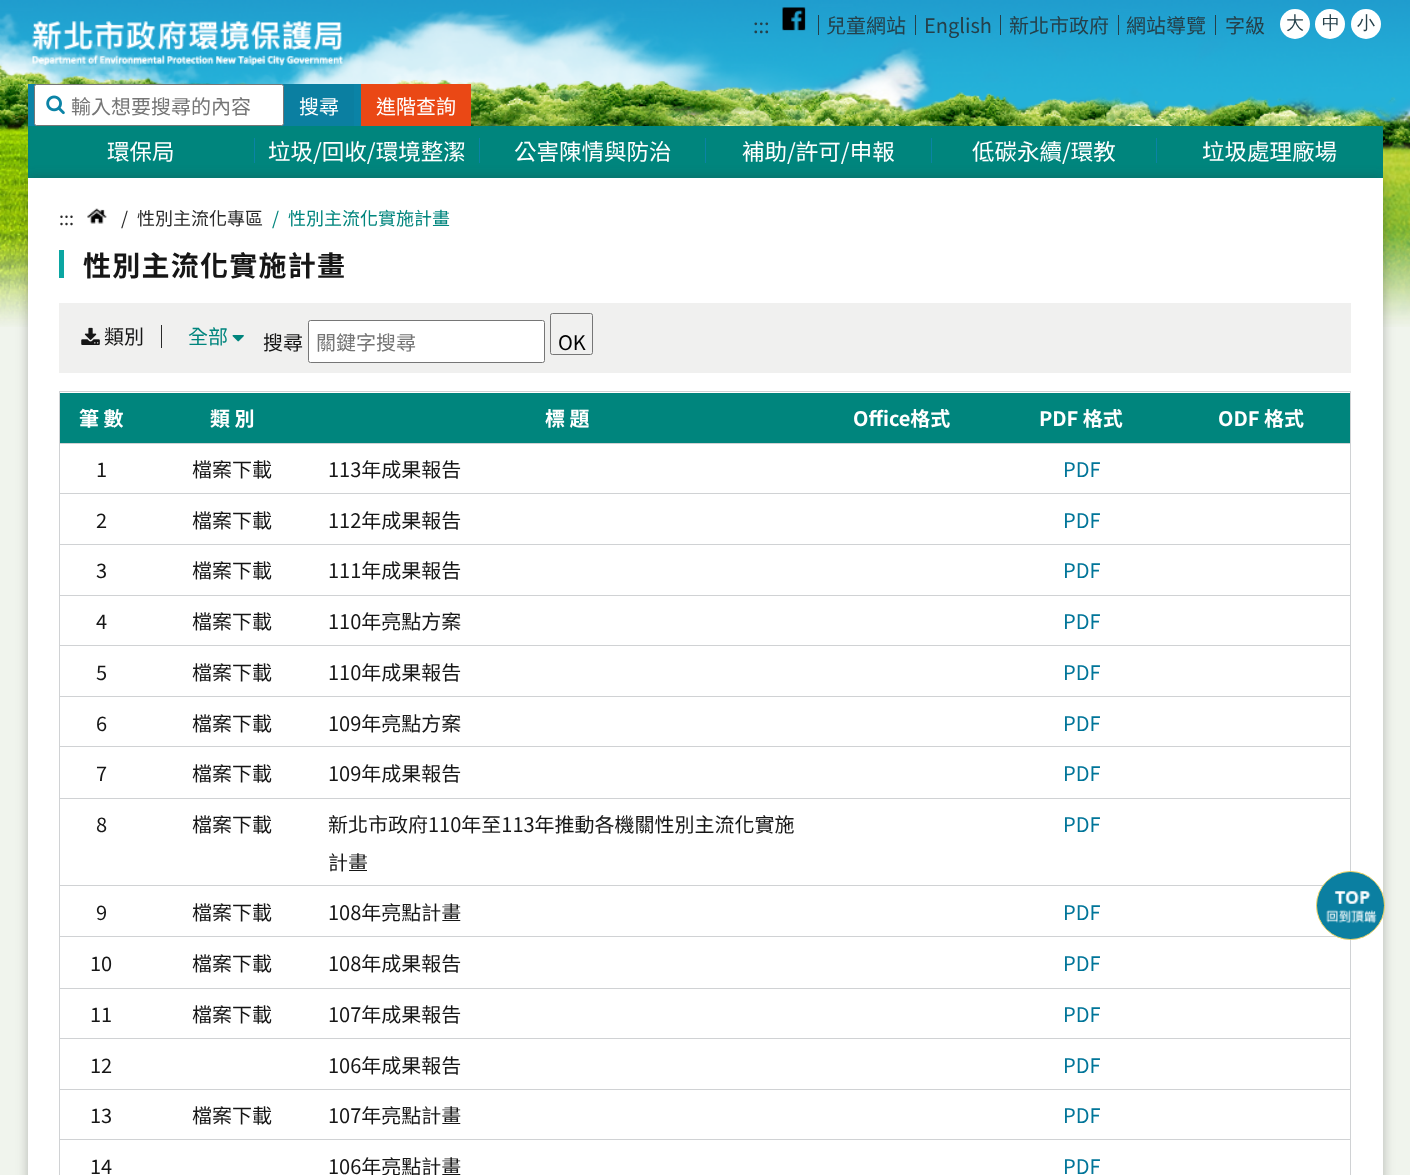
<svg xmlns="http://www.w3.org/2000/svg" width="1410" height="1175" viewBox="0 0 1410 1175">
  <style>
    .t1 { font: 20px Noto Sans TC; fill: #25404a; }
    .t2 { font: 500 18px WenQuanYi Zen Hei; fill: #25404a; }
    .t3 { font: 20px Noto Sans TC; fill: #757575; }
    .t4 { font: 20px Noto Sans TC; fill: #fff; }
    .t5 { font: 22.5px Noto Sans TC; fill: #fff; }
    .t6 { font: 18px Noto Sans TC; fill: #2a2a2a; }
    .t7 { font: 18px Noto Sans TC; fill: #00857d; }
    .t8 { font: bold 28px Noto Sans TC; letter-spacing: 1.25px; fill: #161616; }
    .t9 { font: 20px Noto Sans TC; fill: #161616; }
    .t10 { font: 20px Noto Sans TC; fill: #00857d; }
    .t11 { font: 20px Noto Sans TC; fill: #000; }
    .t12 { font: bold 20px Noto Sans TC; fill: #fff; }
    .t13 { font: 20px Noto Sans TC; fill: #007599; }
  </style>
  <rect width="100%" height="100%" fill="#f0f4ed"/>
  <image x="0" y="0" width="1410" height="327" href="images/1.png"/>
  <image x="32" y="21" width="311" height="46" href="images/2.png"/>
  <text x="753" y="33" class="t1">:::</text>
  <image x="782" y="7" width="24" height="24" href="images/3.png"/>
  <rect x="818" y="15" width="1" height="20" fill="#25404a"/>
  <text x="826" y="33" class="t1">兒童網站</text>
  <rect x="915" y="15" width="1" height="20" fill="#25404a"/>
  <text x="924" y="33" class="t1">English</text>
  <rect x="1000" y="15" width="1" height="20" fill="#25404a"/>
  <text x="1009" y="33" class="t1">新北市政府</text>
  <rect x="1118" y="15" width="1" height="20" fill="#25404a"/>
  <text x="1126" y="33" class="t1">網站導覽</text>
  <rect x="1215" y="15" width="1" height="20" fill="#25404a"/>
  <text x="1225" y="33" class="t1">字級</text>
  <circle cx="1295" cy="24" r="15" fill="#fff"/>
  <text x="1286" y="29" class="t2">大</text>
  <circle cx="1330" cy="24" r="15" fill="#fff"/>
  <text x="1322" y="29" class="t2">中</text>
  <circle cx="1366" cy="24" r="15" fill="#fff"/>
  <text x="1357" y="29" class="t2">小</text>
  <rect x="28" y="84" width="333" height="42" fill="#0b83a6"/>
  <rect x="34.5" y="84.5" width="249" height="41" rx="2" fill="#fff" stroke="#767676"/>
  <image x="46" y="95" width="19" height="20" href="images/4.png"/>
  <text x="71" y="114" class="t3">輸入想要搜尋的內容</text>
  <rect x="284" y="84" width="70" height="42" fill="#0b7fa1"/>
  <text x="299" y="114" class="t4">搜尋</text>
  <rect x="361" y="84" width="110" height="42" fill="#ea4815"/>
  <text x="376" y="114" class="t4">進階查詢</text>
  <rect x="28" y="126" width="1355" height="52" fill="#00857d"/>
  <text x="107" y="160" class="t5">環保局</text>
  <rect x="254" y="138" width="1" height="25" fill="#0b83a6"/>
  <text x="268" y="160" class="t5">垃圾/回收/環境整潔</text>
  <rect x="479" y="138" width="1" height="25" fill="#0b83a6"/>
  <text x="514" y="160" class="t5">公害陳情與防治</text>
  <rect x="705" y="138" width="1" height="25" fill="#0b83a6"/>
  <text x="742" y="160" class="t5">補助/許可/申報</text>
  <rect x="931" y="138" width="1" height="25" fill="#0b83a6"/>
  <text x="972" y="160" class="t5">低碳永續/環教</text>
  <rect x="1156" y="138" width="1" height="25" fill="#0b83a6"/>
  <text x="1202" y="160" class="t5">垃圾處理廠場</text>
  <rect x="28" y="178" width="1355" height="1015" fill="#2a2a2a4d" filter="blur(6px)"/>
  <rect x="28" y="178" width="1355" height="997" fill="#fff"/>
  <text x="59" y="225" class="t6">:::</text>
  <image x="87" y="208" width="20" height="16" href="images/5.png"/>
  <text x="121" y="225" class="t6">/</text>
  <text x="137" y="225" class="t6">性別主流化專區</text>
  <text x="272" y="225" class="t7">/</text>
  <text x="288" y="225" class="t7">性別主流化實施計畫</text>
  <rect x="59" y="250" width="5" height="28" fill="#0ba6a2"/>
  <text x="83" y="276" class="t8">性別主流化實施計畫</text>
  <rect x="59" y="303" width="1292" height="70" fill="#f0f0ef"/>
  <image x="81" y="327" width="19" height="18" href="images/6.png"/>
  <text x="104" y="344" class="t9">類別</text>
  <rect x="161" y="325" width="1" height="23" fill="#2a2a2a"/>
  <text x="188" y="344" class="t10">全部</text>
  <image x="232" y="335" width="12" height="7" href="images/7.png"/>
  <text x="263" y="350" class="t9">搜尋</text>
  <rect x="308.5" y="320.5" width="236" height="42" rx="2" fill="#fff" stroke="#767676"/>
  <text x="316" y="350" class="t3">關鍵字搜尋</text>
  <rect x="550.5" y="313.5" width="42" height="41" rx="2" fill="none" stroke="#767676"/>
  <text x="558" y="350" class="t11">OK</text>
  <rect x="59" y="391" width="1292" height="1" fill="#d0d2d4"/>
  <rect x="1350" y="391" width="1" height="784" fill="#d0d2d4"/>
  <rect x="59" y="391" width="1" height="784" fill="#d0d2d4"/>
  <rect x="60" y="393" width="1290" height="50" fill="#00857d"/>
  <text x="79" y="426" class="t12">筆 數</text>
  <text x="210" y="426" class="t12">類 別</text>
  <text x="545" y="426" class="t12">標 題</text>
  <text x="853" y="426" class="t12">Office格式</text>
  <text x="1039" y="426" class="t12">PDF 格式</text>
  <text x="1218" y="426" class="t12">ODF 格式</text>
  <rect x="59" y="443" width="1292" height="1" fill="#d0d2d4"/>
  <text x="96" y="477" class="t9">1</text>
  <text x="192" y="477" class="t9">檔案下載</text>
  <text x="328" y="477" class="t9">113年成果報告</text>
  <text x="1063" y="477" class="t13">PDF</text>
  <rect x="59" y="493" width="1292" height="1" fill="#d0d2d4"/>
  <text x="96" y="528" class="t9">2</text>
  <text x="192" y="528" class="t9">檔案下載</text>
  <text x="328" y="528" class="t9">112年成果報告</text>
  <text x="1063" y="528" class="t13">PDF</text>
  <rect x="59" y="544" width="1292" height="1" fill="#d0d2d4"/>
  <text x="96" y="578" class="t9">3</text>
  <text x="192" y="578" class="t9">檔案下載</text>
  <text x="328" y="578" class="t9">111年成果報告</text>
  <text x="1063" y="578" class="t13">PDF</text>
  <rect x="59" y="595" width="1292" height="1" fill="#d0d2d4"/>
  <text x="96" y="629" class="t9">4</text>
  <text x="192" y="629" class="t9">檔案下載</text>
  <text x="328" y="629" class="t9">110年亮點方案</text>
  <text x="1063" y="629" class="t13">PDF</text>
  <rect x="59" y="645" width="1292" height="1" fill="#d0d2d4"/>
  <text x="96" y="680" class="t9">5</text>
  <text x="192" y="680" class="t9">檔案下載</text>
  <text x="328" y="680" class="t9">110年成果報告</text>
  <text x="1063" y="680" class="t13">PDF</text>
  <rect x="59" y="696" width="1292" height="1" fill="#d0d2d4"/>
  <text x="96" y="731" class="t9">6</text>
  <text x="192" y="731" class="t9">檔案下載</text>
  <text x="328" y="731" class="t9">109年亮點方案</text>
  <text x="1063" y="731" class="t13">PDF</text>
  <rect x="59" y="746" width="1292" height="1" fill="#d0d2d4"/>
  <text x="96" y="781" class="t9">7</text>
  <text x="192" y="781" class="t9">檔案下載</text>
  <text x="328" y="781" class="t9">109年成果報告</text>
  <text x="1063" y="781" class="t13">PDF</text>
  <rect x="59" y="798" width="1292" height="1" fill="#d0d2d4"/>
  <text x="96" y="832" class="t9">8</text>
  <text x="192" y="832" class="t9">檔案下載</text>
  <text x="328" y="832" class="t9">新北市政府110年至113年推動各機關性別主流化實施</text>
  <text x="328" y="870" class="t9">計畫</text>
  <text x="1063" y="832" class="t13">PDF</text>
  <rect x="59" y="885" width="1264" height="1" fill="#d0d2d4"/>
  <text x="96" y="920" class="t9">9</text>
  <text x="192" y="920" class="t9">檔案下載</text>
  <text x="328" y="920" class="t9">108年亮點計畫</text>
  <text x="1063" y="920" class="t13">PDF</text>
  <rect x="59" y="936" width="1278" height="1" fill="#d0d2d4"/>
  <text x="90" y="971" class="t9">10</text>
  <text x="192" y="971" class="t9">檔案下載</text>
  <text x="328" y="971" class="t9">108年成果報告</text>
  <text x="1063" y="971" class="t13">PDF</text>
  <rect x="59" y="988" width="1292" height="1" fill="#d0d2d4"/>
  <text x="90" y="1022" class="t9">11</text>
  <text x="192" y="1022" class="t9">檔案下載</text>
  <text x="328" y="1022" class="t9">107年成果報告</text>
  <text x="1063" y="1022" class="t13">PDF</text>
  <rect x="59" y="1038" width="1292" height="1" fill="#d0d2d4"/>
  <text x="90" y="1073" class="t9">12</text>
  <text x="328" y="1073" class="t9">106年成果報告</text>
  <text x="1063" y="1073" class="t13">PDF</text>
  <rect x="59" y="1089" width="1292" height="1" fill="#d0d2d4"/>
  <text x="90" y="1123" class="t9">13</text>
  <text x="192" y="1123" class="t9">檔案下載</text>
  <text x="328" y="1123" class="t9">107年亮點計畫</text>
  <text x="1063" y="1123" class="t13">PDF</text>
  <rect x="59" y="1139" width="1292" height="1" fill="#d0d2d4"/>
  <text x="90" y="1174" class="t9">14</text>
  <text x="328" y="1174" class="t9">106年亮點計畫</text>
  <text x="1063" y="1174" class="t13">PDF</text>
  <circle cx="1350.5" cy="905.5" r="34" fill="#0b7fa1" stroke="#efd365"/>
  <image x="1326" y="891" width="51" height="32" href="images/8.png"/>
</svg>
